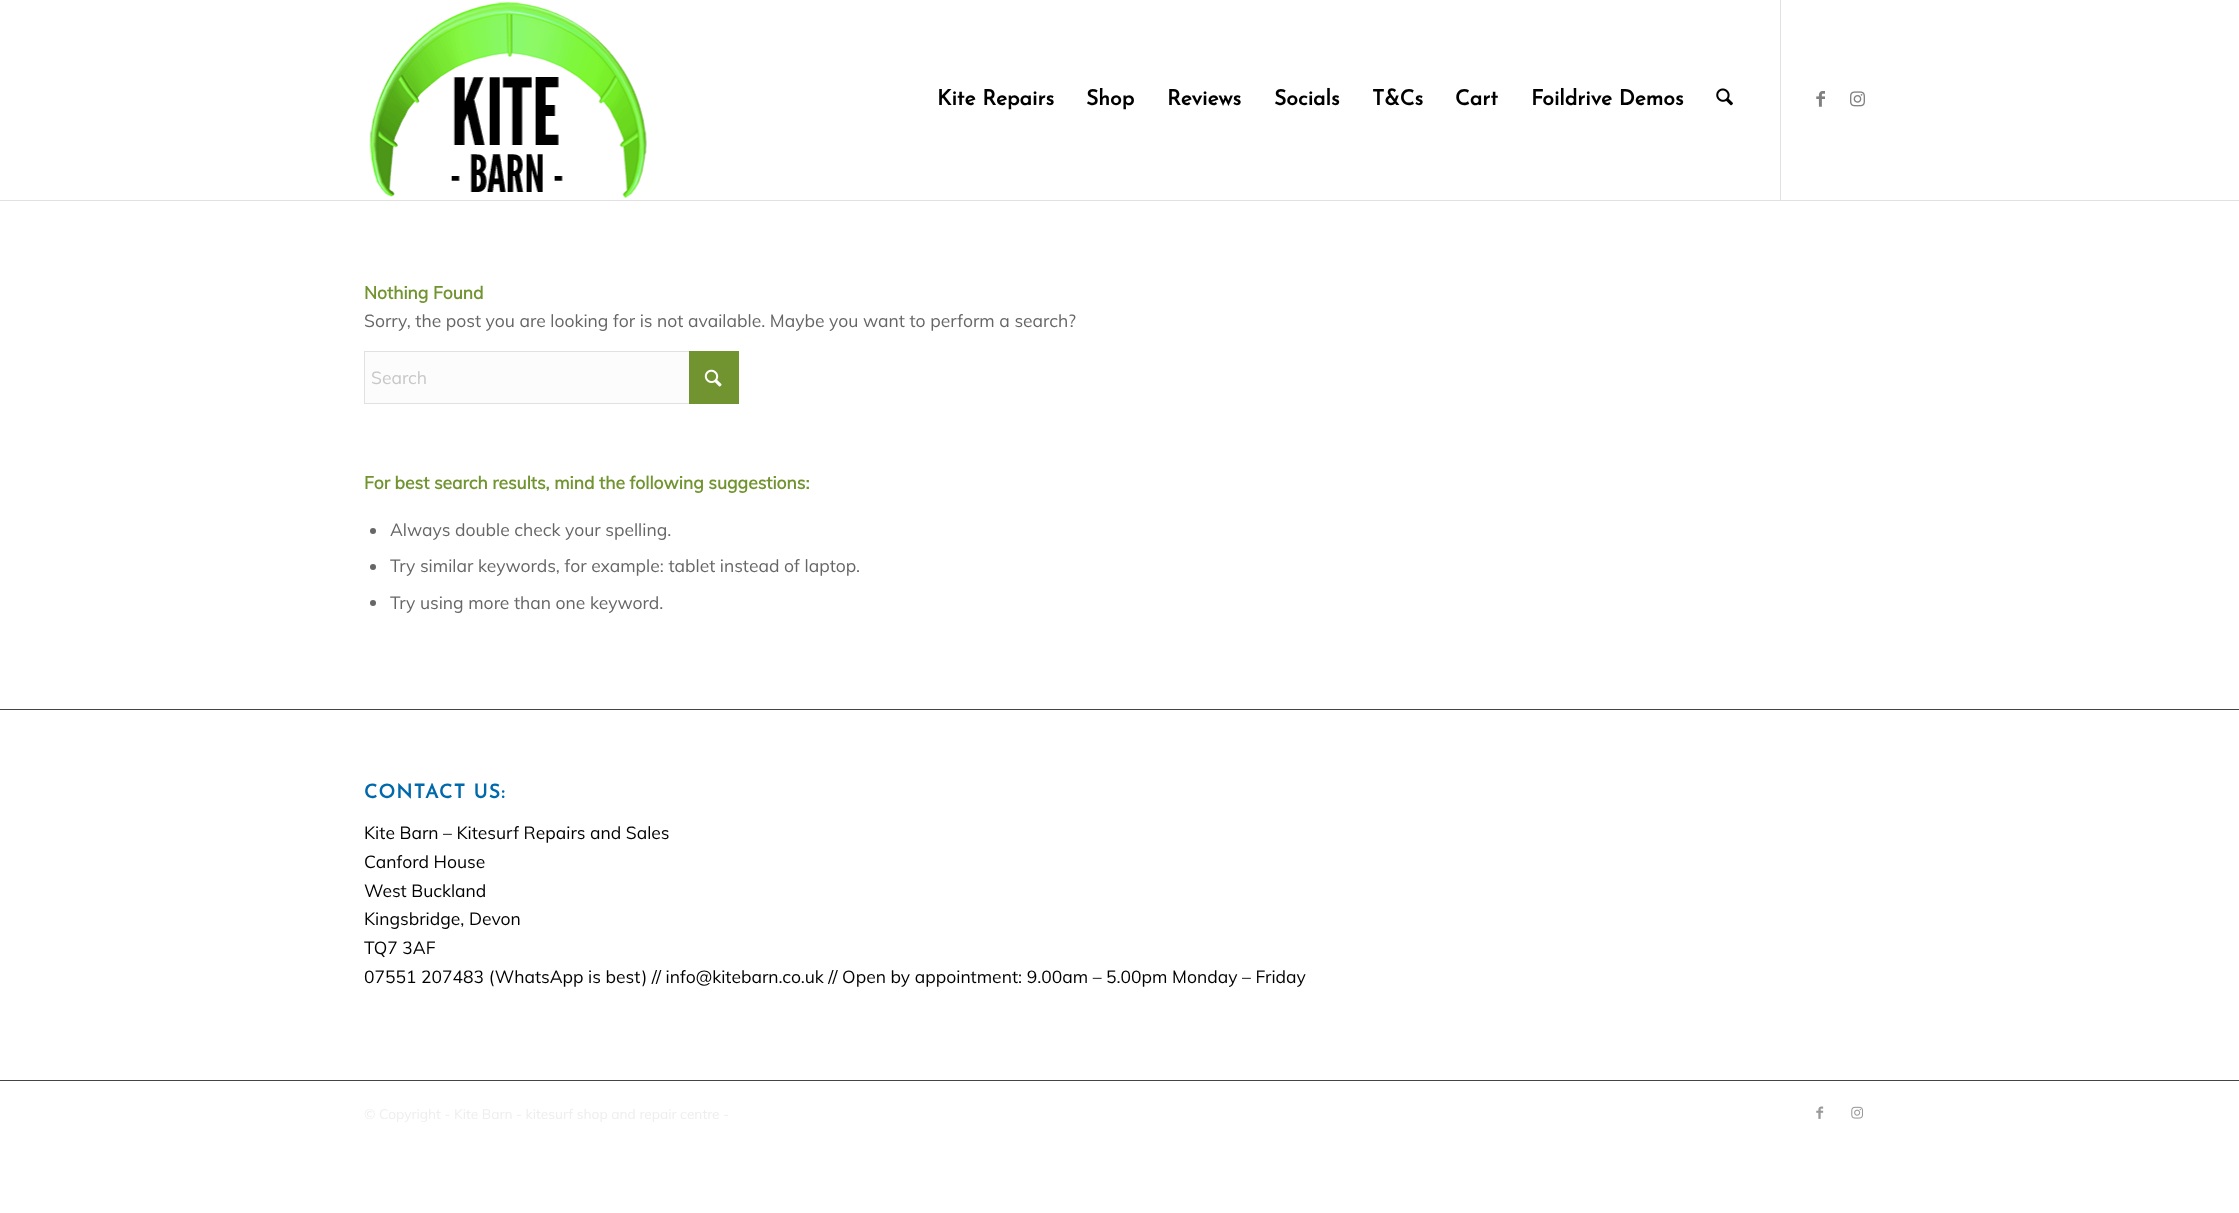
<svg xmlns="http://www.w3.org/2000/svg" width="2239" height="1213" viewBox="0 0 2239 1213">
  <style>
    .t1 { font: bold 21.25px Josefin Sans; fill: #000; }
    .t2 { font: bold 17.5px Muli; fill: #719430; }
    .t3 { font: 17.5px Muli; fill: #666; }
    .t4 { font: 17.5px Muli; fill: #c7c7c7; }
    .t5 { font: bold 19.25px Josefin Sans; letter-spacing: 1.25px; fill: #0069ab; }
    .t6 { font: 17.5px Muli; fill: #000; }
    .t7 { font: 13.75px Muli; fill: #eee; }
  </style>
  <rect width="100%" height="100%" fill="#fff"/>
  <rect x="0" y="200" width="2239" height="1" fill="#e1e1e1"/>
  <image x="369" y="2" width="278" height="196" href="images/1.png"/>
  <rect x="1780" y="0" width="1" height="200" fill="#e1e1e1"/>
  <text x="937" y="105" class="t1">Kite Repairs</text>
  <text x="1086" y="105" class="t1">Shop</text>
  <text x="1167" y="105" class="t1">Reviews</text>
  <text x="1274" y="105" class="t1">Socials</text>
  <text x="1372" y="105" class="t1">T&amp;Cs</text>
  <text x="1455" y="105" class="t1">Cart</text>
  <text x="1531" y="105" class="t1">Foildrive Demos</text>
  <image x="1716" y="88" width="17" height="18" href="images/2.png"/>
  <image x="1816" y="91" width="9" height="16" href="images/3.png"/>
  <image x="1850" y="91" width="15" height="16" href="images/4.png"/>
  <text x="364" y="299" class="t2">Nothing Found</text>
  <text x="364" y="327" class="t3">Sorry, the post you are looking for is not available. Maybe you want to perform a search?</text>
  <rect x="365" y="352" width="324" height="51" fill="#fcfcfc"/>
  <rect x="364.5" y="351.5" width="374" height="52" fill="none" stroke="#e1e1e1"/>
  <rect x="689" y="351" width="50" height="53" fill="#719430"/>
  <text x="371" y="384" class="t4">Search</text>
  <image x="704" y="369" width="18" height="18" href="images/5.png"/>
  <text x="364" y="489" class="t2">For best search results, mind the following suggestions:</text>
  <circle cx="373" cy="531" r="3" fill="#666"/>
  <text x="390" y="536" class="t3">Always double check your spelling.</text>
  <circle cx="373" cy="567" r="3" fill="#666"/>
  <text x="390" y="572" class="t3">Try similar keywords, for example: tablet instead of laptop.</text>
  <circle cx="373" cy="603" r="3" fill="#666"/>
  <text x="390" y="609" class="t3">Try using more than one keyword.</text>
  <rect x="0" y="709" width="2239" height="1" fill="#444"/>
  <text x="364" y="798" class="t5">CONTACT US:</text>
  <text x="364" y="839" class="t6">Kite Barn – Kitesurf Repairs and Sales</text>
  <text x="364" y="868" class="t6">Canford House</text>
  <text x="364" y="897" class="t6">West Buckland</text>
  <text x="364" y="925" class="t6">Kingsbridge, Devon</text>
  <text x="364" y="954" class="t6">TQ7 3AF</text>
  <text x="364" y="983" class="t6">07551 207483 (WhatsApp is best) // info@kitebarn.co.uk // Open by appointment: 9.00am – 5.00pm Monday – Friday</text>
  <rect x="0" y="1080" width="2239" height="1" fill="#444"/>
  <text x="364" y="1119" class="t7">© Copyright - Kite Barn - kitesurf shop and repair centre -</text>
  <image x="1816" y="1106" width="8" height="13" href="images/6.png"/>
  <image x="1851" y="1106" width="12" height="13" href="images/7.png"/>
</svg>
